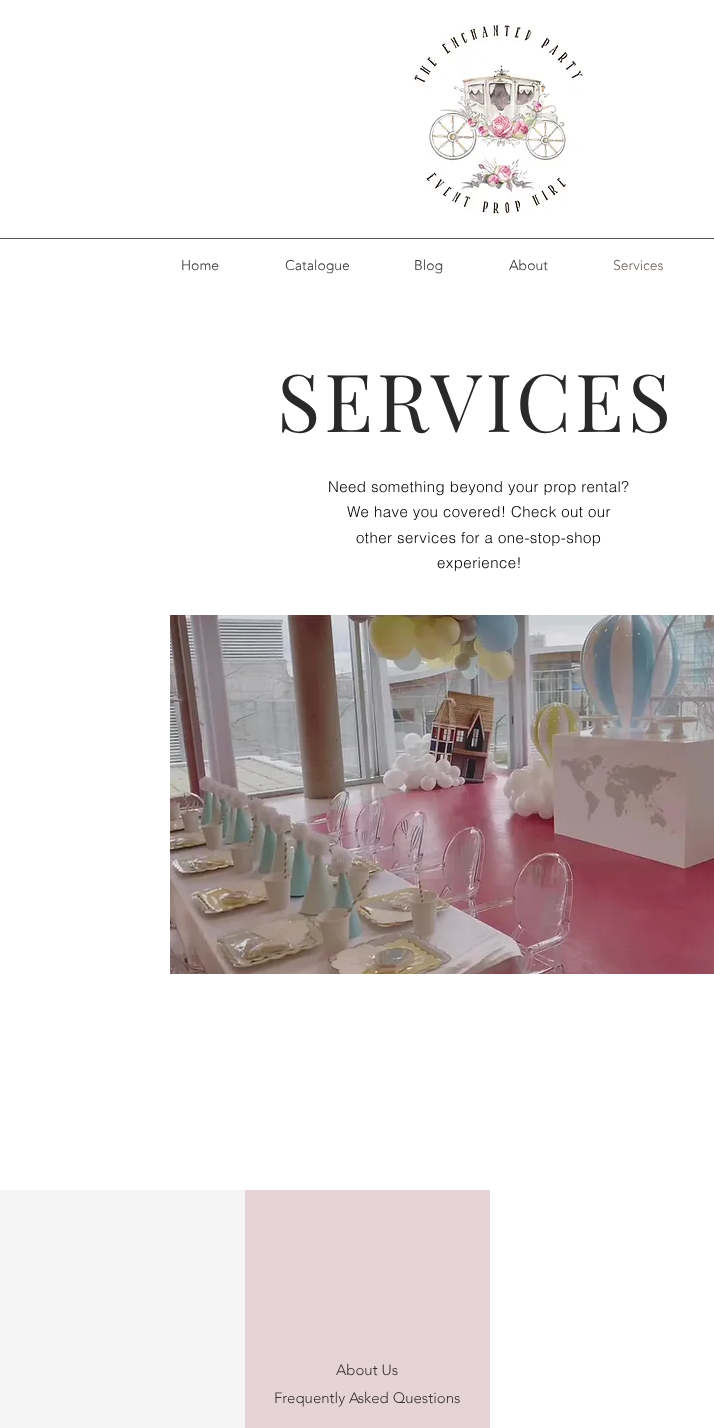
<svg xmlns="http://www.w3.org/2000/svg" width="714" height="1428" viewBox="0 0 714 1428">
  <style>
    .t1 { font: 300 14px 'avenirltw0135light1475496'; fill: #37332f; }
    .t2 { font: 300 14px 'avenirltw0135light1475496'; fill: #6e665e; }
    .t3 { font: 80px Playfair Display; letter-spacing: 4px; fill: #292929; }
    .t4 { font: 300 15px helvetica; letter-spacing: 0.45px; fill: #000; }
    .t5 { font: 300 15px 'avenirltw0135light1475496'; fill: #37332f; }
  </style>
  <rect width="100%" height="100%" fill="#fff"/>
  <image x="412" y="25" width="172" height="192" href="images/1.png"/>
  <rect x="0" y="238" width="714" height="1" fill="#55524e"/>
  <text x="181" y="270" class="t1">Home</text>
  <text x="285" y="270" class="t1">Catalogue</text>
  <text x="414" y="270" class="t1">Blog</text>
  <text x="509" y="270" class="t1">About</text>
  <text x="613" y="270" class="t2">Services</text>
  <text x="277" y="432" class="t3">SERVICES</text>
  <text x="328" y="492" class="t4">Need something beyond your prop rental?</text>
  <text x="347" y="517" class="t4">We have you covered! Check out our</text>
  <text x="356" y="543" class="t4">other services for a one-stop-shop</text>
  <text x="437" y="568" class="t4">experience!</text>
  <image x="170" y="615" width="544" height="359" href="images/2.png"/>
  <rect x="0" y="1190" width="245" height="238" fill="#f5f5f5"/>
  <rect x="245" y="1190" width="245" height="238" fill="#e6d3d7"/>
  <text x="336" y="1375" class="t5">About Us</text>
  <text x="274" y="1403" class="t5">Frequently Asked Questions</text>
</svg>
